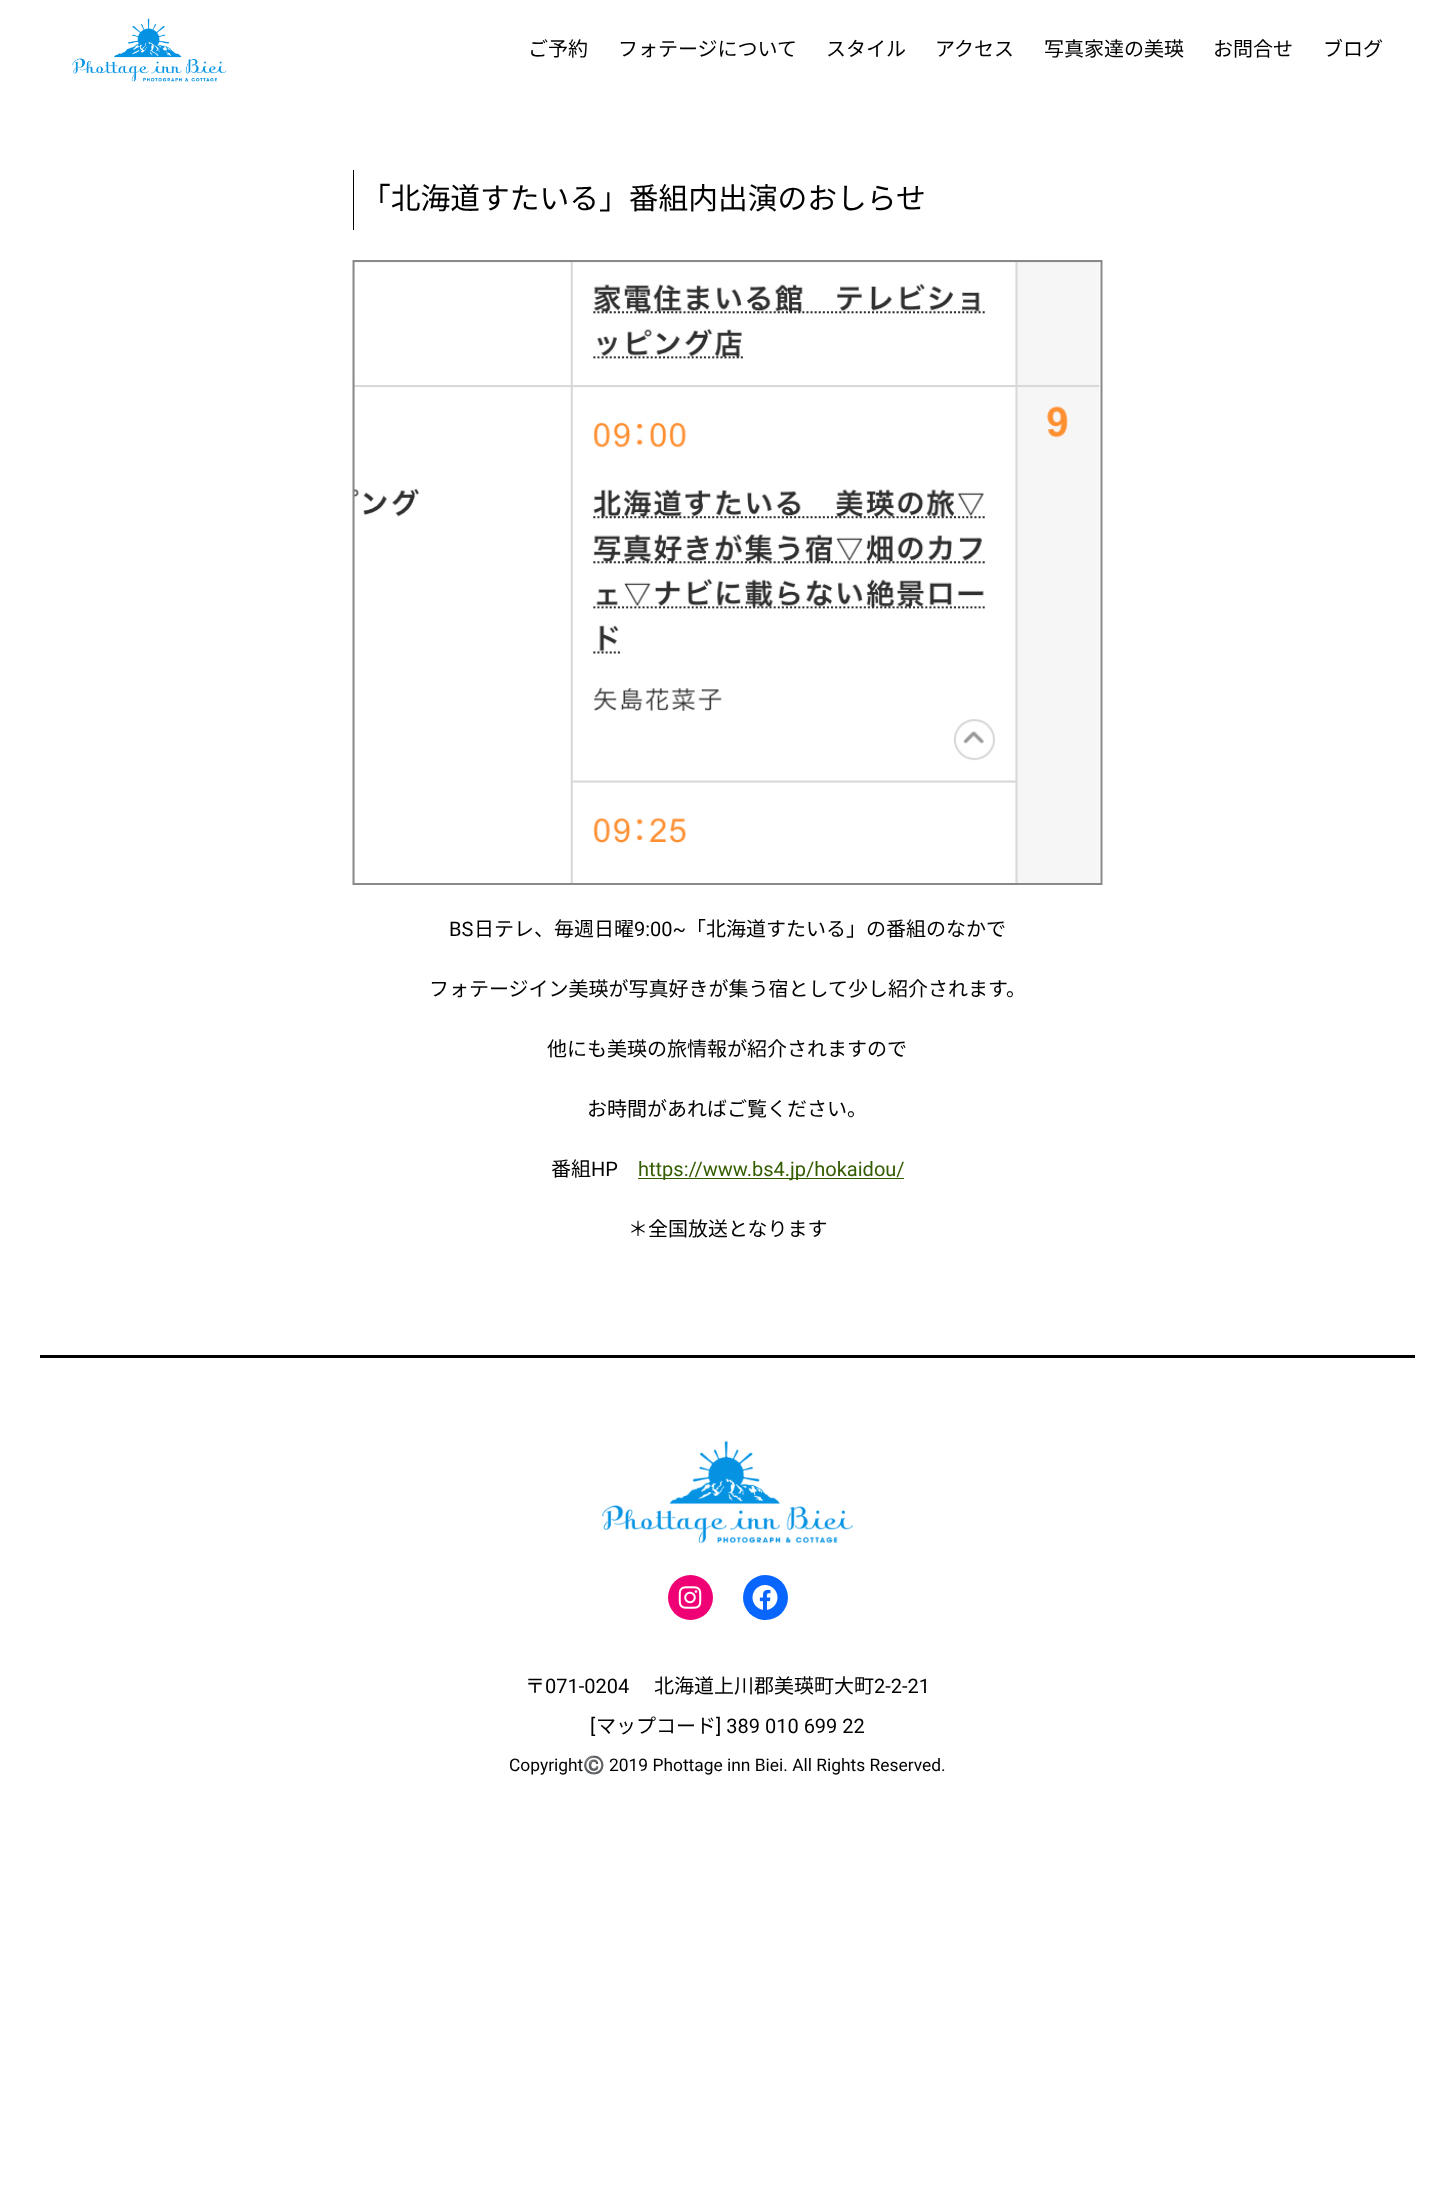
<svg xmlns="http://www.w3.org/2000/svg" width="1455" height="2186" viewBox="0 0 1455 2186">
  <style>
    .t1 { font: 20px Noto Sans CJK JP; fill: #000; }
    .t2 { font: 29.75px Noto Sans CJK JP; fill: #000; }
    .t3 { font: 20px Roboto; fill: #000; }
    .t4 { font: 20px Roboto; fill: #345c00; }
    .t5 { font: 17.4px Roboto; fill: #000; }
    .t6 { font: 17.4px Noto Color Emoji; fill: #000; }
  </style>
  <rect width="100%" height="100%" fill="#fff"/>
  <image x="72" y="18" width="155" height="64" href="images/1.png"/>
  <text x="528" y="56" class="t1">ご予約</text>
  <text x="618" y="56" class="t1">フォテージについて</text>
  <text x="826" y="56" class="t1">スタイル</text>
  <text x="935" y="56" class="t1">アクセス</text>
  <text x="1044" y="56" class="t1">写真家達の美瑛</text>
  <text x="1213" y="56" class="t1">お問合せ</text>
  <text x="1323" y="56" class="t1">ブログ</text>
  <rect x="353" y="170" width="1" height="60" fill="#000"/>
  <text x="361" y="209" class="t2">「北海道すたいる」番組内出演のおしらせ</text>
  <image x="352" y="260" width="751" height="625" href="images/2.png"/>
  <text x="449" y="936" class="t3">BS</text>
  <text x="474" y="936" class="t1">日テレ、毎週日曜</text>
  <text x="634" y="936" class="t3">9:00~</text>
  <text x="686" y="936" class="t1">「北海道すたいる」の番組のなかで</text>
  <text x="429" y="996" class="t1">フォテージイン美瑛が写真好きが集う宿として少し紹介されます。</text>
  <text x="547" y="1056" class="t1">他にも美瑛の旅情報が紹介されますので</text>
  <text x="587" y="1116" class="t1">お時間があればご覧ください。</text>
  <text x="551" y="1176" class="t1">番組</text>
  <text x="591" y="1176" class="t3">HP</text>
  <rect x="638" y="1178" width="266" height="1" fill="#345c00"/>
  <text x="638" y="1176" class="t4">https://www.bs4.jp/hokaidou/</text>
  <text x="628" y="1236" class="t1">＊全国放送となります</text>
  <rect x="40" y="1355" width="1375" height="3" fill="#000"/>
  <image x="602" y="1441" width="251" height="102" href="images/3.png"/>
  <circle cx="690.5" cy="1597.5" r="22.5" fill="#f00075"/>
  <image x="678" y="1586" width="24" height="23" href="images/4.png"/>
  <circle cx="765.5" cy="1597.5" r="22.5" fill="#0866ff"/>
  <image x="752" y="1585" width="26" height="25" href="images/5.png"/>
  <text x="525" y="1693" class="t1">〒</text>
  <text x="545" y="1693" class="t3">071-0204</text>
  <text x="654" y="1693" class="t1">北海道上川郡美瑛町大町</text>
  <text x="874" y="1693" class="t3">2-2-21</text>
  <text x="590" y="1733" class="t3">[</text>
  <text x="596" y="1733" class="t1">マップコード</text>
  <text x="716" y="1733" class="t3">] 389 010 699 22</text>
  <text x="509" y="1771" class="t5">Copyright</text>
  <text x="583" y="1771" class="t6">©️</text>
  <text x="609" y="1771" class="t5">2019 Phottage inn Biei. All Rights Reserved.</text>
</svg>
